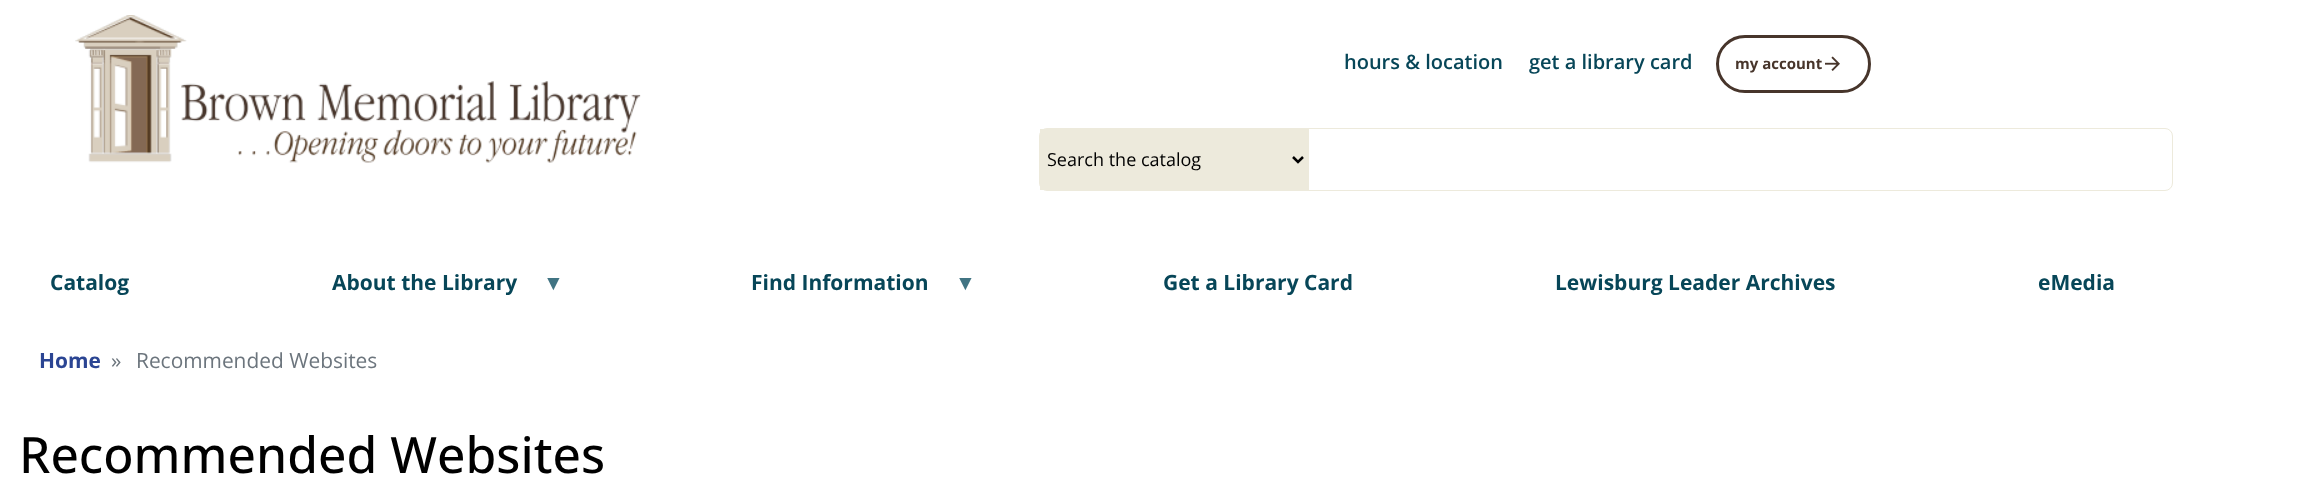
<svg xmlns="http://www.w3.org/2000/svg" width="2305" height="495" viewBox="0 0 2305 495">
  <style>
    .t1 { font: 600 20px Open Sans; fill: #074658; }
    .t2 { font: bold 15px Open Sans; fill: #47352b; }
    .t3 { font: 18px Open Sans; fill: #000; }
    .t4 { font: bold 21px Open Sans; fill: #074658; }
    .t5 { font: bold 21px Liberation Sans; fill: #417483; }
    .t6 { font: bold 20.9px Open Sans; fill: #2b4593; }
    .t7 { font: 20.9px Open Sans; fill: #6c757d; }
    .t8 { font: 500 50px Open Sans; fill: #000; }
  </style>
  <rect width="100%" height="100%" fill="#fff"/>
  <image x="75" y="15" width="566" height="148" href="images/1.png"/>
  <text x="1344" y="69" class="t1">hours &amp; location</text>
  <text x="1529" y="69" class="t1">get a library card</text>
  <rect x="1717.5" y="36.5" width="152" height="55" rx="27.5" fill="none" stroke="#47352b" stroke-width="3"/>
  <text x="1735" y="69" class="t2">my account</text>
  <image x="1825" y="56" width="15" height="15" href="images/2.png"/>
  <rect x="1039.5" y="128.5" width="1133" height="62" rx="7.5" fill="none" stroke="#edeadc"/>
  <rect x="1040" y="129" width="269" height="61" fill="#edeadc"/>
  <path d="M1293 157L1298 162L1303 157" fill="none" stroke="#000" stroke-width="2.5"/>
  <text x="1047" y="166" class="t3">Search the catalog</text>
  <text x="50" y="290" class="t4">Catalog</text>
  <text x="332" y="290" class="t4">About the Library</text>
  <text x="543" y="290" class="t5">▼</text>
  <text x="751" y="290" class="t4">Find Information</text>
  <text x="955" y="290" class="t5">▼</text>
  <text x="1163" y="290" class="t4">Get a Library Card</text>
  <text x="1555" y="290" class="t4">Lewisburg Leader Archives</text>
  <text x="2038" y="290" class="t4">eMedia</text>
  <text x="39" y="368" class="t6">Home</text>
  <text x="111" y="368" class="t7">»</text>
  <text x="136" y="368" class="t7">Recommended Websites</text>
  <text x="19" y="473" class="t8">Recommended Websites</text>
</svg>
